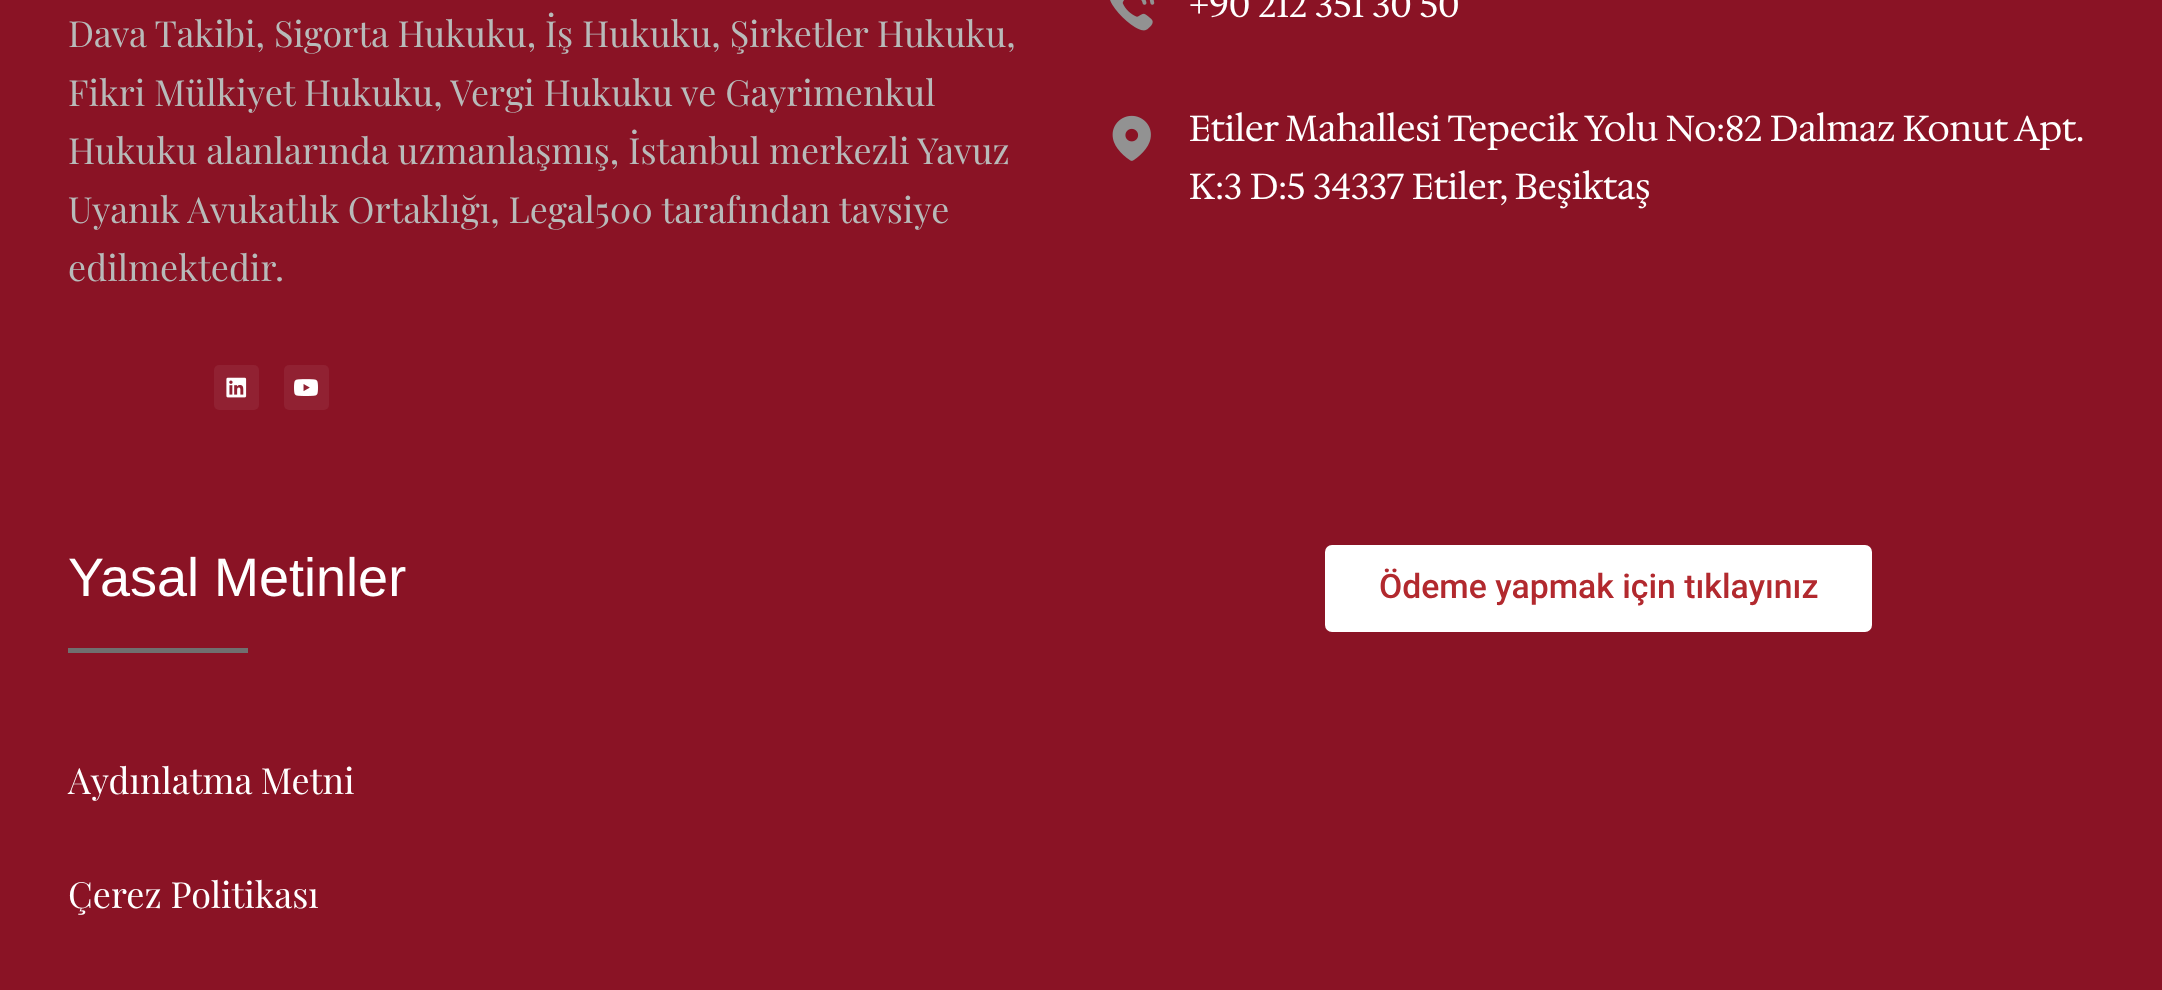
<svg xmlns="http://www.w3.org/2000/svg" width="2162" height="990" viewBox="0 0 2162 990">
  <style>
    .t1 { font: 36px Playfair Display; fill: #b8bab9; }
    .t2 { font: 36px Hedvig Letters Serif; fill: #fff; }
    .t3 { font: 54px Liberation Sans; fill: #fff; }
    .t4 { font: 36px Playfair Display; fill: #fff; }
    .t5 { font: 500 33.75px Roboto; fill: #b2292e; }
  </style>
  <rect width="100%" height="100%" fill="#8a1325"/>
  <text x="68" y="47" class="t1">Dava Takibi, Sigorta Hukuku, İş Hukuku, Şirketler Hukuku,</text>
  <text x="68" y="106" class="t1">Fikri Mülkiyet Hukuku, Vergi Hukuku ve Gayrimenkul</text>
  <text x="68" y="164" class="t1">Hukuku alanlarında uzmanlaşmış, İstanbul merkezli Yavuz</text>
  <text x="68" y="223" class="t1">Uyanık Avukatlık Ortaklığı, Legal500 tarafından tavsiye</text>
  <text x="68" y="281" class="t1">edilmektedir.</text>
  <rect x="214" y="365" width="45" height="45" rx="5" fill="#912132"/>
  <image x="226" y="377" width="21" height="21" href="images/1.png"/>
  <rect x="284" y="365" width="45" height="45" rx="5" fill="#912132"/>
  <image x="294" y="379" width="24" height="17" href="images/2.png"/>
  <image x="1110" y="0" width="45" height="31" href="images/3.png"/>
  <text x="1189" y="17" class="t2">+90 212 351 30 50</text>
  <image x="1112" y="115" width="39" height="46" href="images/4.png"/>
  <text x="1189" y="141" word-spacing="-0.25" class="t2">Etiler Mahallesi Tepecik Yolu No:82 Dalmaz Konut Apt.</text>
  <text x="1189" y="199" class="t2">K:3 D:5 34337 Etiler, Beşiktaş</text>
  <text x="68" y="596" class="t3">Yasal Metinler</text>
  <rect x="68" y="648" width="180" height="5" fill="#706f6f"/>
  <text x="68" y="794" class="t4">Aydınlatma Metni</text>
  <text x="68" y="908" class="t4">Çerez Politikası</text>
  <rect x="1325" y="545" width="547" height="87" rx="7" fill="#fff"/>
  <text x="1379" y="598" class="t5">Ödeme yapmak için tıklayınız</text>
</svg>
